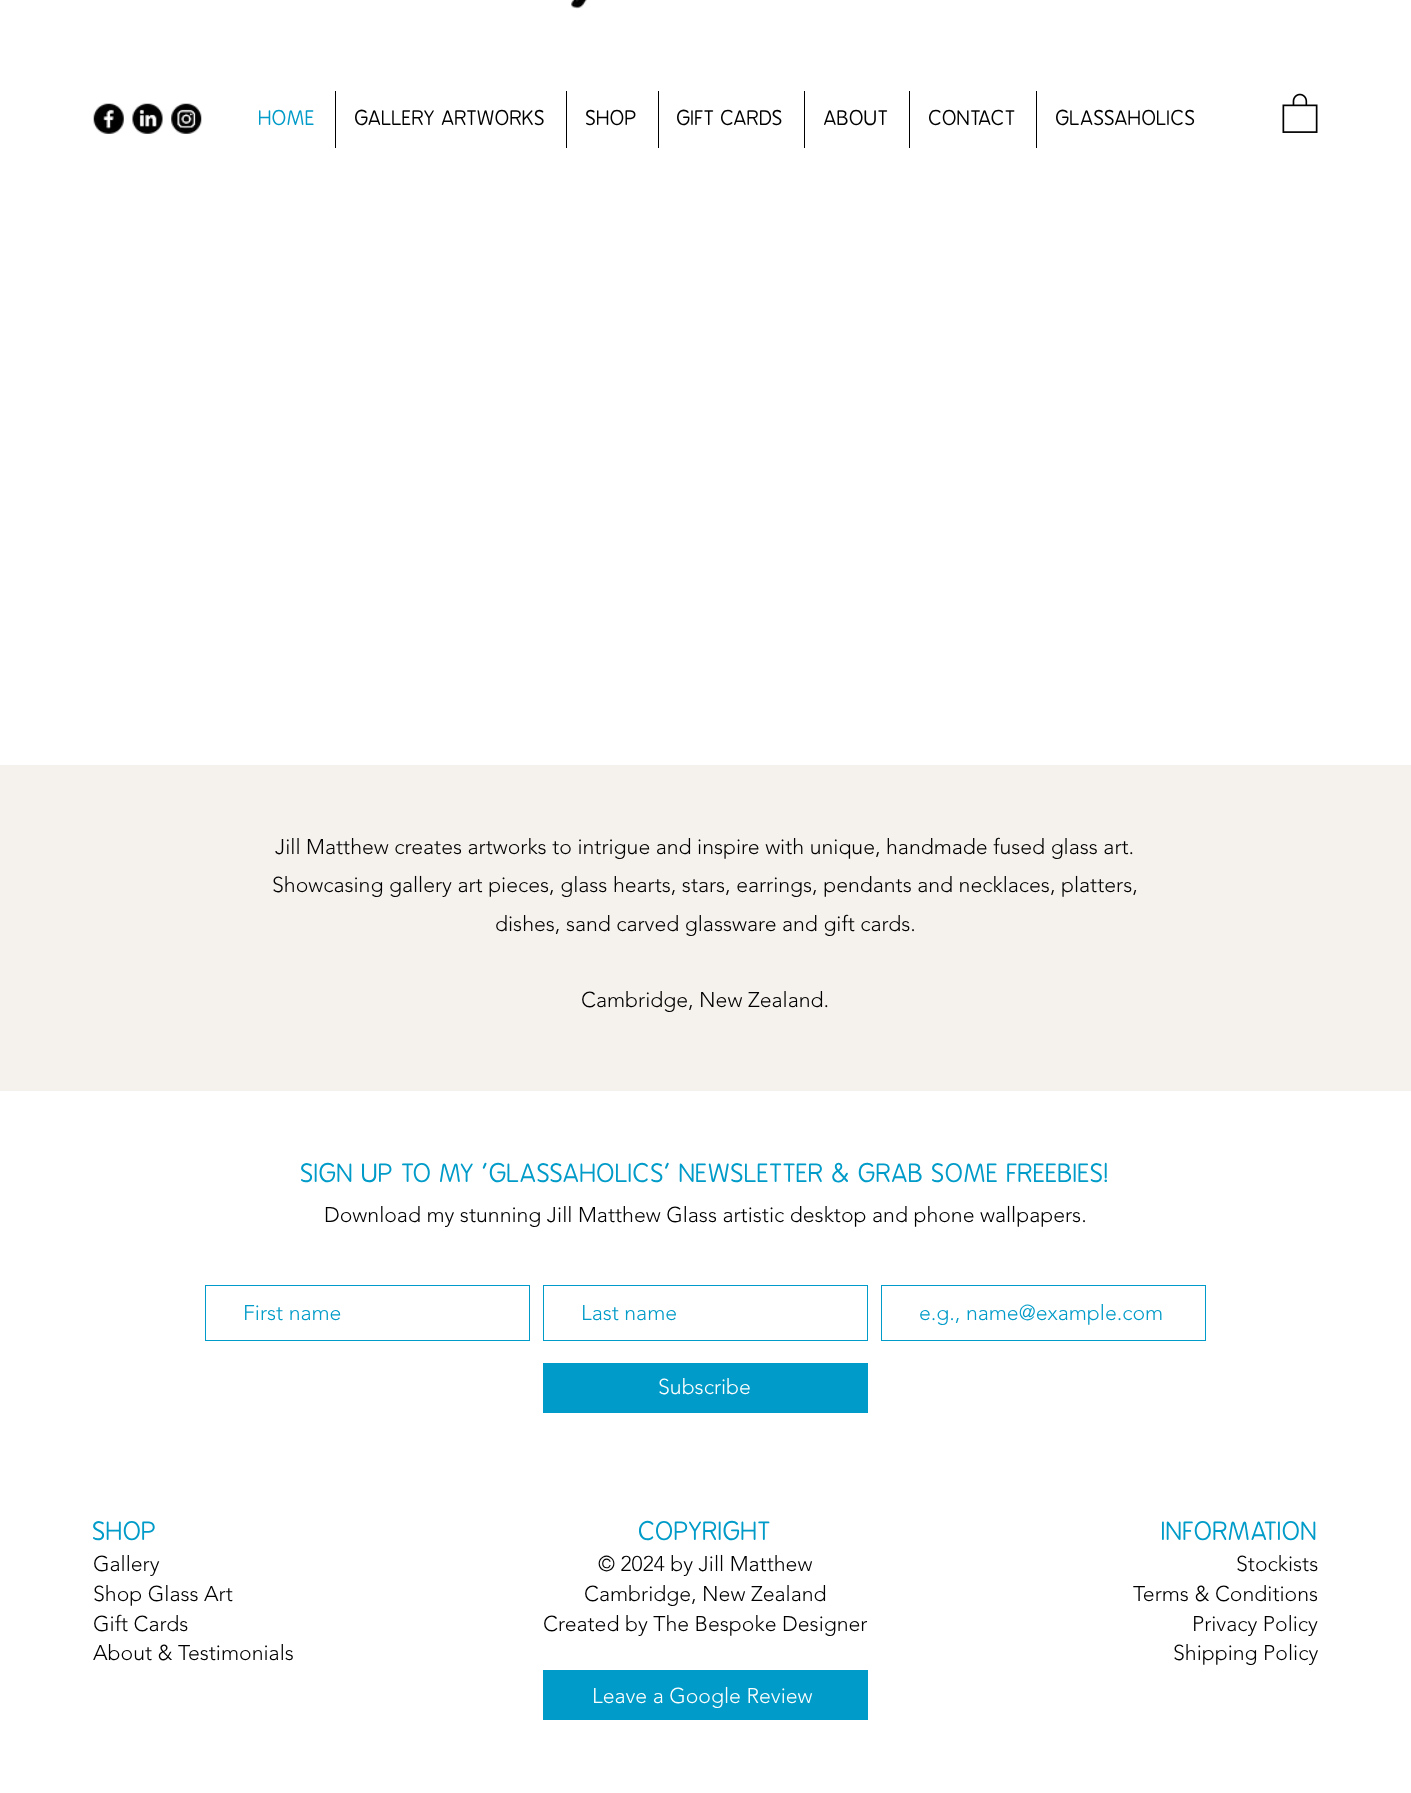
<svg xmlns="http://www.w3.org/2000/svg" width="1411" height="1793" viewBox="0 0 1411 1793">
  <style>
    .t1 { font: 20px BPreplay; fill: #009bc8; }
    .t2 { font: 20px BPreplay; fill: #000; }
    .t3 { font: 300 21.25px 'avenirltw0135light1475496'; fill: #000; }
    .t4 { font: 25px BPreplay; fill: #009bc8; }
    .t5 { font: 300 21.25px 'avenirltw0135light1475496'; fill: #009bc8; }
    .t6 { font: 300 21.25px 'avenirltw0135light1475496'; fill: #fff; }
  </style>
  <rect width="100%" height="100%" fill="#fff"/>
  <image x="571" y="0" width="16" height="9" href="images/1.png"/>
  <image x="93" y="103" width="31" height="31" href="images/2.png"/>
  <image x="132" y="103" width="31" height="31" href="images/3.png"/>
  <image x="171" y="103" width="31" height="31" href="images/4.png"/>
  <text x="259" y="125" class="t1">HOME</text>
  <rect x="335" y="91" width="1" height="57" fill="#000"/>
  <text x="355" y="125" class="t2">GALLERY ARTWORKS</text>
  <rect x="566" y="91" width="1" height="57" fill="#000"/>
  <text x="586" y="125" class="t2">SHOP</text>
  <rect x="658" y="91" width="1" height="57" fill="#000"/>
  <text x="677" y="125" class="t2">GIFT CARDS</text>
  <rect x="804" y="91" width="1" height="57" fill="#000"/>
  <text x="824" y="125" class="t2">ABOUT</text>
  <rect x="909" y="91" width="1" height="57" fill="#000"/>
  <text x="929" y="125" class="t2">CONTACT</text>
  <rect x="1036" y="91" width="1" height="57" fill="#000"/>
  <text x="1056" y="125" class="t2">GLASSAHOLICS</text>
  <image x="1282" y="93" width="36" height="40" href="images/5.png"/>
  <rect x="0" y="765" width="1411" height="326" fill="#f5f1ed"/>
  <text x="275" y="854" class="t3">Jill Matthew creates artworks to intrigue and inspire with unique, handmade fused glass art.</text>
  <text x="272" y="892" class="t3">Showcasing gallery art pieces, glass hearts, stars, earrings, pendants and necklaces, platters,</text>
  <text x="495" y="931" class="t3">dishes, sand carved glassware and gift cards.</text>
  <text x="581" y="1007" class="t3">Cambridge, New Zealand.</text>
  <text x="301" y="1182" class="t4">SIGN UP TO MY 'GLASSAHOLICS' NEWSLETTER &amp; GRAB SOME FREEBIES!</text>
  <text x="324" y="1222" class="t3">Download my stunning Jill Matthew Glass artistic desktop and phone wallpapers.</text>
  <rect x="205.5" y="1285.5" width="324" height="55" fill="none" stroke="#009bc8"/>
  <text x="243" y="1320" class="t5">First name</text>
  <rect x="543.5" y="1285.5" width="324" height="55" fill="none" stroke="#009bc8"/>
  <text x="581" y="1320" class="t5">Last name</text>
  <rect x="881.5" y="1285.5" width="324" height="55" fill="none" stroke="#009bc8"/>
  <text x="919" y="1320" class="t5">e.g., name@example.com</text>
  <rect x="543" y="1363" width="325" height="50" fill="#009bc8"/>
  <text x="658" y="1394" class="t6">Subscribe</text>
  <text x="93" y="1540" class="t4">SHOP</text>
  <text x="93" y="1571" class="t3">Gallery</text>
  <text x="93" y="1601" class="t3">Shop Glass Art</text>
  <text x="93" y="1631" class="t3">Gift Cards</text>
  <text x="93" y="1660" class="t3">About &amp; Testimonials</text>
  <text x="639" y="1540" class="t4">COPYRIGHT</text>
  <text x="598" y="1571" class="t3">© 2024 by Jill Matthew</text>
  <text x="584" y="1601" class="t3">Cambridge, New Zealand</text>
  <text x="543" y="1631" class="t3">Created by The Bespoke Designer</text>
  <text x="1162" y="1540" class="t4">INFORMATION</text>
  <text x="1236" y="1571" class="t3">Stockists</text>
  <text x="1133" y="1601" class="t3">Terms &amp; Conditions</text>
  <text x="1192" y="1631" class="t3">Privacy Policy</text>
  <text x="1173" y="1660" class="t3">Shipping Policy</text>
  <rect x="543" y="1670" width="325" height="50" fill="#009bc8"/>
  <text x="592" y="1703" class="t6">Leave a Google Review</text>
</svg>
